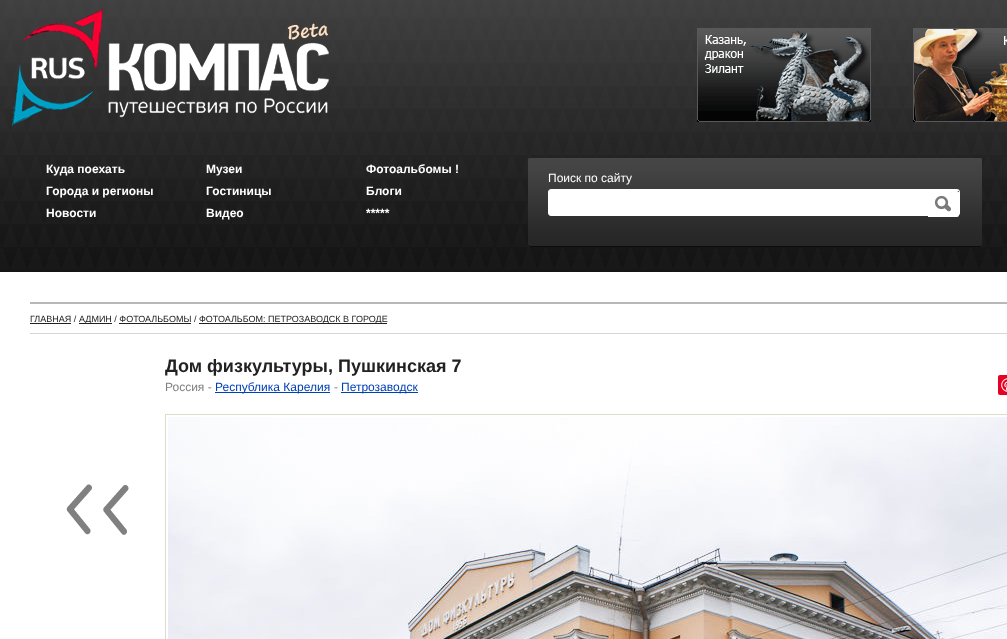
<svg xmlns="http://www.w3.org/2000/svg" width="1007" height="639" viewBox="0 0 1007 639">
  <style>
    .t1 { font: bold 12px Liberation Sans; fill: #fff; }
    .t2 { font: 12px Liberation Sans; fill: #fff; }
    .t3 { font: 9px Liberation Sans; fill: #212121; }
    .t4 { font: bold 18px Liberation Sans; fill: #212121; }
    .t5 { font: 12px Liberation Sans; fill: #808080; }
    .t6 { font: 12px Liberation Sans; fill: #0040b5; }
  </style>
  <rect width="100%" height="100%" fill="#fff"/>
  <image x="0" y="0" width="1007" height="272" href="images/1.png"/>
  <image x="12" y="8" width="317" height="118" href="images/2.png"/>
  <image x="697" y="28" width="174" height="94" href="images/3.png"/>
  <image x="913" y="28" width="94" height="94" href="images/4.png"/>
  <text x="46" y="173" class="t1">Куда поехать</text>
  <text x="46" y="195" class="t1">Города и регионы</text>
  <text x="46" y="217" class="t1">Новости</text>
  <text x="206" y="173" class="t1">Музеи</text>
  <text x="206" y="195" class="t1">Гостиницы</text>
  <text x="206" y="217" class="t1">Видео</text>
  <text x="366" y="173" class="t1">Фотоальбомы !</text>
  <text x="366" y="195" class="t1">Блоги</text>
  <text x="366" y="217" class="t1">*****</text>
  <image x="528" y="158" width="2" height="89" href="images/5.png"/>
  <image x="530" y="158" width="450" height="89" href="images/6.png"/>
  <text x="548" y="182" class="t2">Поиск по сайту</text>
  <rect x="548.5" y="189.5" width="411" height="26" rx="2.5" fill="#fff" stroke="#fff"/>
  <image x="928" y="191" width="31" height="26" href="images/7.png"/>
  <image x="980" y="158" width="2" height="89" href="images/8.png"/>
  <rect x="30" y="302" width="977" height="2" fill="#b8b8b8"/>
  <rect x="30" y="333" width="977" height="1" fill="#d6d6d6"/>
  <text x="30" y="322" class="t3">ГЛАВНАЯ /</text>
  <rect x="30" y="323" width="41" height="1" fill="#212121"/>
  <rect x="79" y="323" width="33" height="1" fill="#212121"/>
  <text x="79" y="322" class="t3">АДМИН / ФОТОАЛЬБОМЫ /</text>
  <rect x="199" y="323" width="188" height="1" fill="#212121"/>
  <text x="199" y="322" class="t3">ФОТОАЛЬБОМ: ПЕТРОЗАВОДСК В ГОРОДЕ</text>
  <rect x="119" y="323" width="72" height="1" fill="#212121"/>
  <text x="165" y="372" class="t4">Дом физкультуры, Пушкинская 7</text>
  <text x="165" y="391" class="t5">Россия -</text>
  <rect x="215" y="392" width="115" height="1" fill="#0040b5"/>
  <text x="215" y="391" class="t6">Республика Карелия</text>
  <text x="334" y="391" class="t5">-</text>
  <rect x="341" y="392" width="77" height="1" fill="#0040b5"/>
  <text x="341" y="391" class="t6">Петрозаводск</text>
  <rect x="998" y="375" width="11" height="20" rx="2" fill="#e60023"/>
  <image x="1001" y="378" width="6" height="14" href="images/9.png"/>
  <rect x="165.5" y="414.5" width="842" height="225" fill="none" stroke="#dedbc8"/>
  <image x="168" y="417" width="839" height="222" href="images/10.png"/>
  <image x="66" y="484" width="63" height="51" href="images/11.png"/>
</svg>
